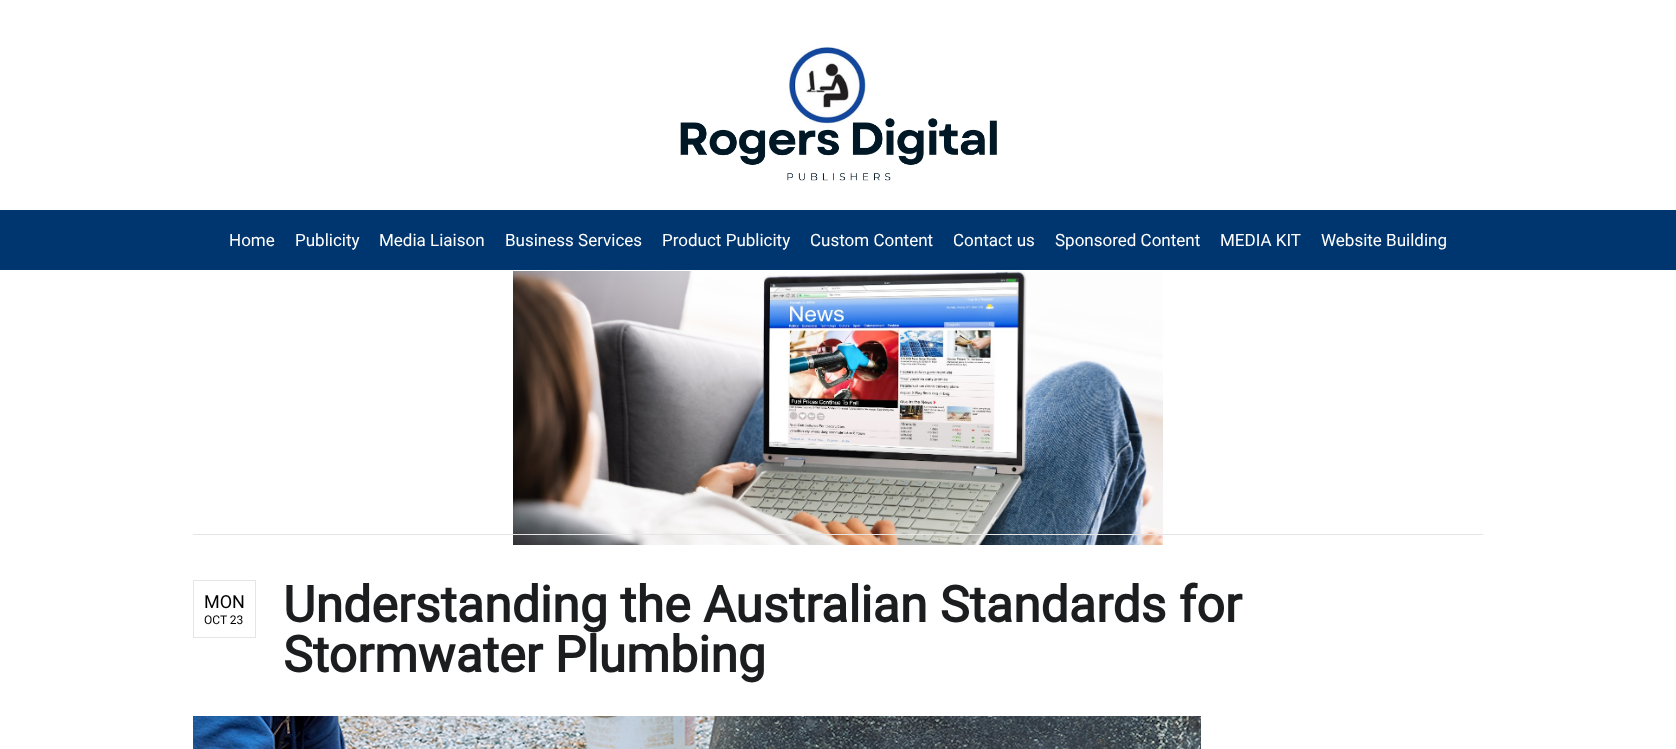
<svg xmlns="http://www.w3.org/2000/svg" width="1676" height="749" viewBox="0 0 1676 749">
  <style>
    .t1 { font: 17px Roboto; fill: #fff; }
    .t2 { font: 18px Roboto; fill: #000; }
    .t3 { font: 12px Roboto; fill: #000; }
    .t4 { font: bold 50px Roboto; fill: #1b1d1f; }
  </style>
  <rect width="100%" height="100%" fill="#fff"/>
  <image x="680" y="47" width="317" height="134" href="images/1.png"/>
  <rect x="0" y="210" width="1676" height="60" fill="#00366f"/>
  <text x="229" y="246" class="t1">Home</text>
  <text x="295" y="246" class="t1">Publicity</text>
  <text x="379" y="246" class="t1">Media Liaison</text>
  <text x="505" y="246" class="t1">Business Services</text>
  <text x="662" y="246" class="t1">Product Publicity</text>
  <text x="810" y="246" class="t1">Custom Content</text>
  <text x="953" y="246" class="t1">Contact us</text>
  <text x="1055" y="246" class="t1">Sponsored Content</text>
  <text x="1220" y="246" class="t1">MEDIA KIT</text>
  <text x="1321" y="246" class="t1">Website Building</text>
  <image x="513" y="271" width="650" height="274" href="images/2.png"/>
  <rect x="193" y="534" width="1290" height="1" fill="#e5e5e5"/>
  <rect x="193.5" y="580.5" width="62" height="57" fill="none" stroke="#e5e5e5"/>
  <text x="204" y="608" class="t2">MON</text>
  <text x="204" y="624" class="t3">OCT 23</text>
  <text x="283" y="622" class="t4">Understanding the Australian Standards for</text>
  <text x="283" y="672" class="t4">Stormwater Plumbing</text>
  <image x="193" y="716" width="1008" height="33" href="images/3.png"/>
</svg>
